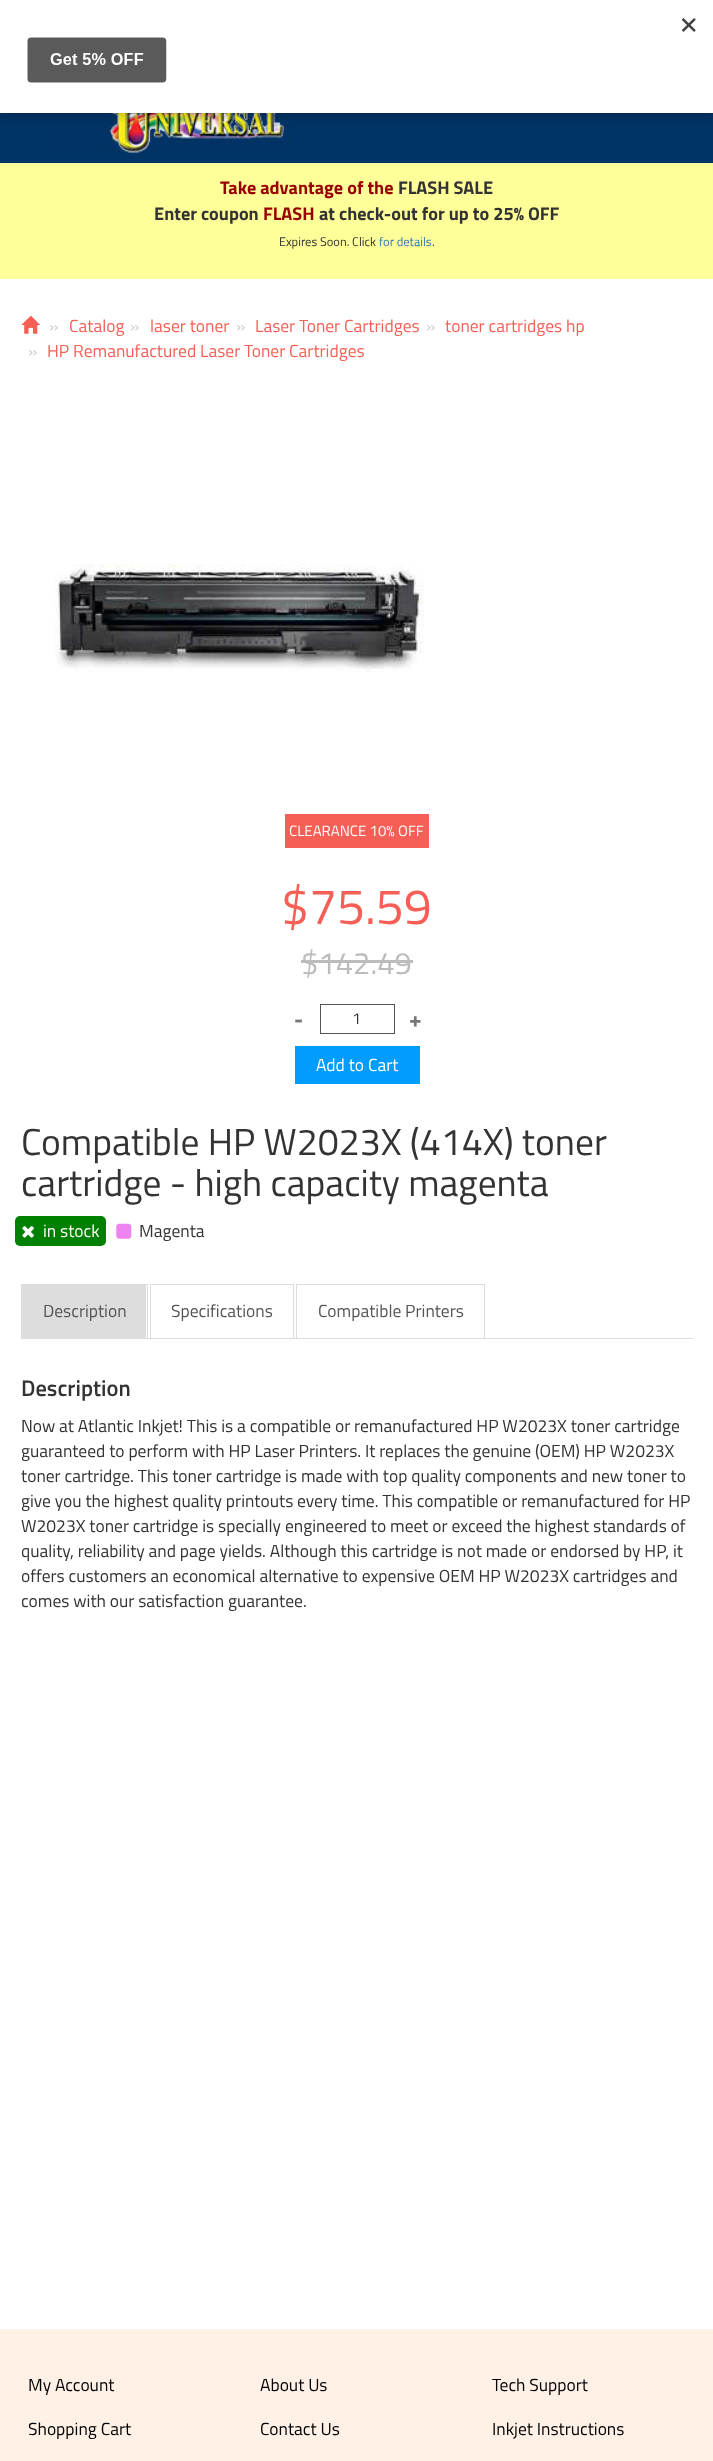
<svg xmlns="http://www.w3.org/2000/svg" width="713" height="2461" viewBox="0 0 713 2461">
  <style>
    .t1 { font: bold 18.3px Titillium Web; fill: #900; }
    .t2 { font: bold 18.3px Titillium Web; fill: #333; }
    .t3 { font: 12.5px Titillium Web; fill: #333; }
    .t4 { font: 12.5px Titillium Web; fill: #337ab7; }
    .t5 { font: 17.5px Titillium Web; fill: #ccc; }
    .t6 { font: 17.5px Titillium Web; fill: #f55f56; }
    .t7 { font: 15px Titillium Web; fill: #fff; }
    .t8 { font: 50px Titillium Web; fill: #f55f56; }
    .t9 { font: 31px Titillium Web; fill: #bcbcbc; }
    .t10 { font: bold 22.5px Titillium Web; fill: #777; }
    .t11 { font: 16px Titillium Web; fill: #333; }
    .t12 { font: 17.5px Titillium Web; fill: #fff; }
    .t13 { font: 37.5px Titillium Web; fill: #333; }
    .t14 { font: 17.5px Titillium Web; fill: #333; }
    .t15 { font: 17.5px Titillium Web; fill: #555; }
    .t16 { font: 600 22.5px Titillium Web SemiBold; fill: #333; }
    .t17 { font: 17.5px Titillium Web; fill: #000; }
  </style>
  <rect width="100%" height="100%" fill="#fff"/>
  <rect x="0" y="113" width="713" height="50" fill="#036"/>
  <image x="41" y="113" width="251" height="40" href="images/2.png"/>
  <rect x="0" y="4" width="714" height="112" fill="#00000033" filter="blur(4px)"/>
  <rect x="0" y="0" width="713" height="113" fill="#fff"/>
  <image x="27" y="18" width="669" height="65" href="images/1.png"/>
  <rect x="0" y="163" width="713" height="116" fill="#ff9"/>
  <text x="220" y="194" class="t1">Take advantage of the</text>
  <text x="398" y="194" class="t2">FLASH SALE</text>
  <text x="154" y="220" class="t2">Enter coupon</text>
  <text x="263" y="220" class="t1">FLASH</text>
  <text x="319" y="220" class="t2">at check-out for up to 25% OFF</text>
  <text x="279" y="246" class="t3">Expires Soon. Click</text>
  <text x="379" y="246" class="t4">for details</text>
  <text x="432" y="246" class="t3">.</text>
  <image x="21" y="315" width="19" height="19" href="images/3.png"/>
  <text x="49" y="332" class="t5">»</text>
  <text x="69" y="332" class="t6">Catalog</text>
  <text x="130" y="332" class="t5">»</text>
  <text x="150" y="332" class="t6">laser toner</text>
  <text x="236" y="332" class="t5">»</text>
  <text x="255" y="332" class="t6">Laser Toner Cartridges</text>
  <text x="426" y="332" class="t5">»</text>
  <text x="445" y="332" class="t6">toner cartridges hp</text>
  <text x="28" y="357" class="t5">»</text>
  <text x="47" y="357" class="t6">HP Remanufactured Laser Toner Cartridges</text>
  <image x="54" y="564" width="370" height="108" href="images/4.png"/>
  <rect x="285" y="814" width="144" height="34" fill="#f55f56"/>
  <text x="289" y="836" class="t7">CLEARANCE 10% OFF</text>
  <text x="281" y="924" class="t8">$75.59</text>
  <text x="301" y="974" class="t9">$142.49</text>
  <rect x="301" y="960" width="112" height="3" fill="#bcbcbc"/>
  <text x="294" y="1027" class="t10">-</text>
  <rect x="320.5" y="1004.5" width="74" height="29" fill="none" stroke="#555"/>
  <text x="352" y="1024" class="t11">1</text>
  <text x="409" y="1027" class="t10">+</text>
  <rect x="295" y="1046" width="125" height="38" fill="#009dff"/>
  <text x="316" y="1071" class="t12">Add to Cart</text>
  <text x="21" y="1155" class="t13">Compatible HP W2023X (414X) toner</text>
  <text x="21" y="1196" class="t13">cartridge - high capacity magenta</text>
  <rect x="15" y="1216" width="91" height="30" rx="5" fill="#008000"/>
  <image x="22" y="1226" width="12" height="12" href="images/5.png"/>
  <text x="43" y="1237" class="t12">in stock</text>
  <image x="116" y="1223" width="16" height="16" href="images/6.png"/>
  <text x="139" y="1237" class="t14">Magenta</text>
  <rect x="148" y="1338" width="545" height="1" fill="#ddd"/>
  <rect x="21.5" y="1284.5" width="126" height="54" fill="none" stroke="#ddd"/>
  <rect x="23" y="1285" width="123" height="53" fill="#ddd"/>
  <path d="M22 1338V1285L24 1286V1336Z" fill="#ddd"/>
  <text x="43" y="1317" class="t15">Description</text>
  <rect x="150.5" y="1284.5" width="143" height="54" fill="none" stroke="#ddd"/>
  <text x="171" y="1317" class="t15">Specifications</text>
  <rect x="296.5" y="1284.5" width="188" height="54" fill="none" stroke="#ddd"/>
  <text x="318" y="1317" class="t15">Compatible Printers</text>
  <text x="21" y="1396" class="t16">Description</text>
  <text x="21" y="1432" class="t14">Now at Atlantic Inkjet! This is a compatible or remanufactured HP W2023X toner cartridge</text>
  <text x="21" y="1457" class="t14">guaranteed to perform with HP Laser Printers. It replaces the genuine (OEM) HP W2023X</text>
  <text x="21" y="1482" class="t14">toner cartridge. This toner cartridge is made with top quality components and new toner to</text>
  <text x="21" y="1507" class="t14">give you the highest quality printouts every time. This compatible or remanufactured for HP</text>
  <text x="21" y="1532" class="t14">W2023X toner cartridge is specially engineered to meet or exceed the highest standards of</text>
  <text x="21" y="1557" class="t14">quality, reliability and page yields. Although this cartridge is not made or endorsed by HP, it</text>
  <text x="21" y="1582" class="t14">offers customers an economical alternative to expensive OEM HP W2023X cartridges and</text>
  <text x="21" y="1607" class="t14">comes with our satisfaction guarantee.</text>
  <rect x="0" y="2329" width="713" height="132" fill="#fff1e5"/>
  <text x="28" y="2391" class="t17">My Account</text>
  <text x="28" y="2435" class="t17">Shopping Cart</text>
  <text x="260" y="2391" class="t17">About Us</text>
  <text x="260" y="2435" class="t17">Contact Us</text>
  <text x="492" y="2391" class="t17">Tech Support</text>
  <text x="492" y="2435" class="t17">Inkjet Instructions</text>
</svg>
